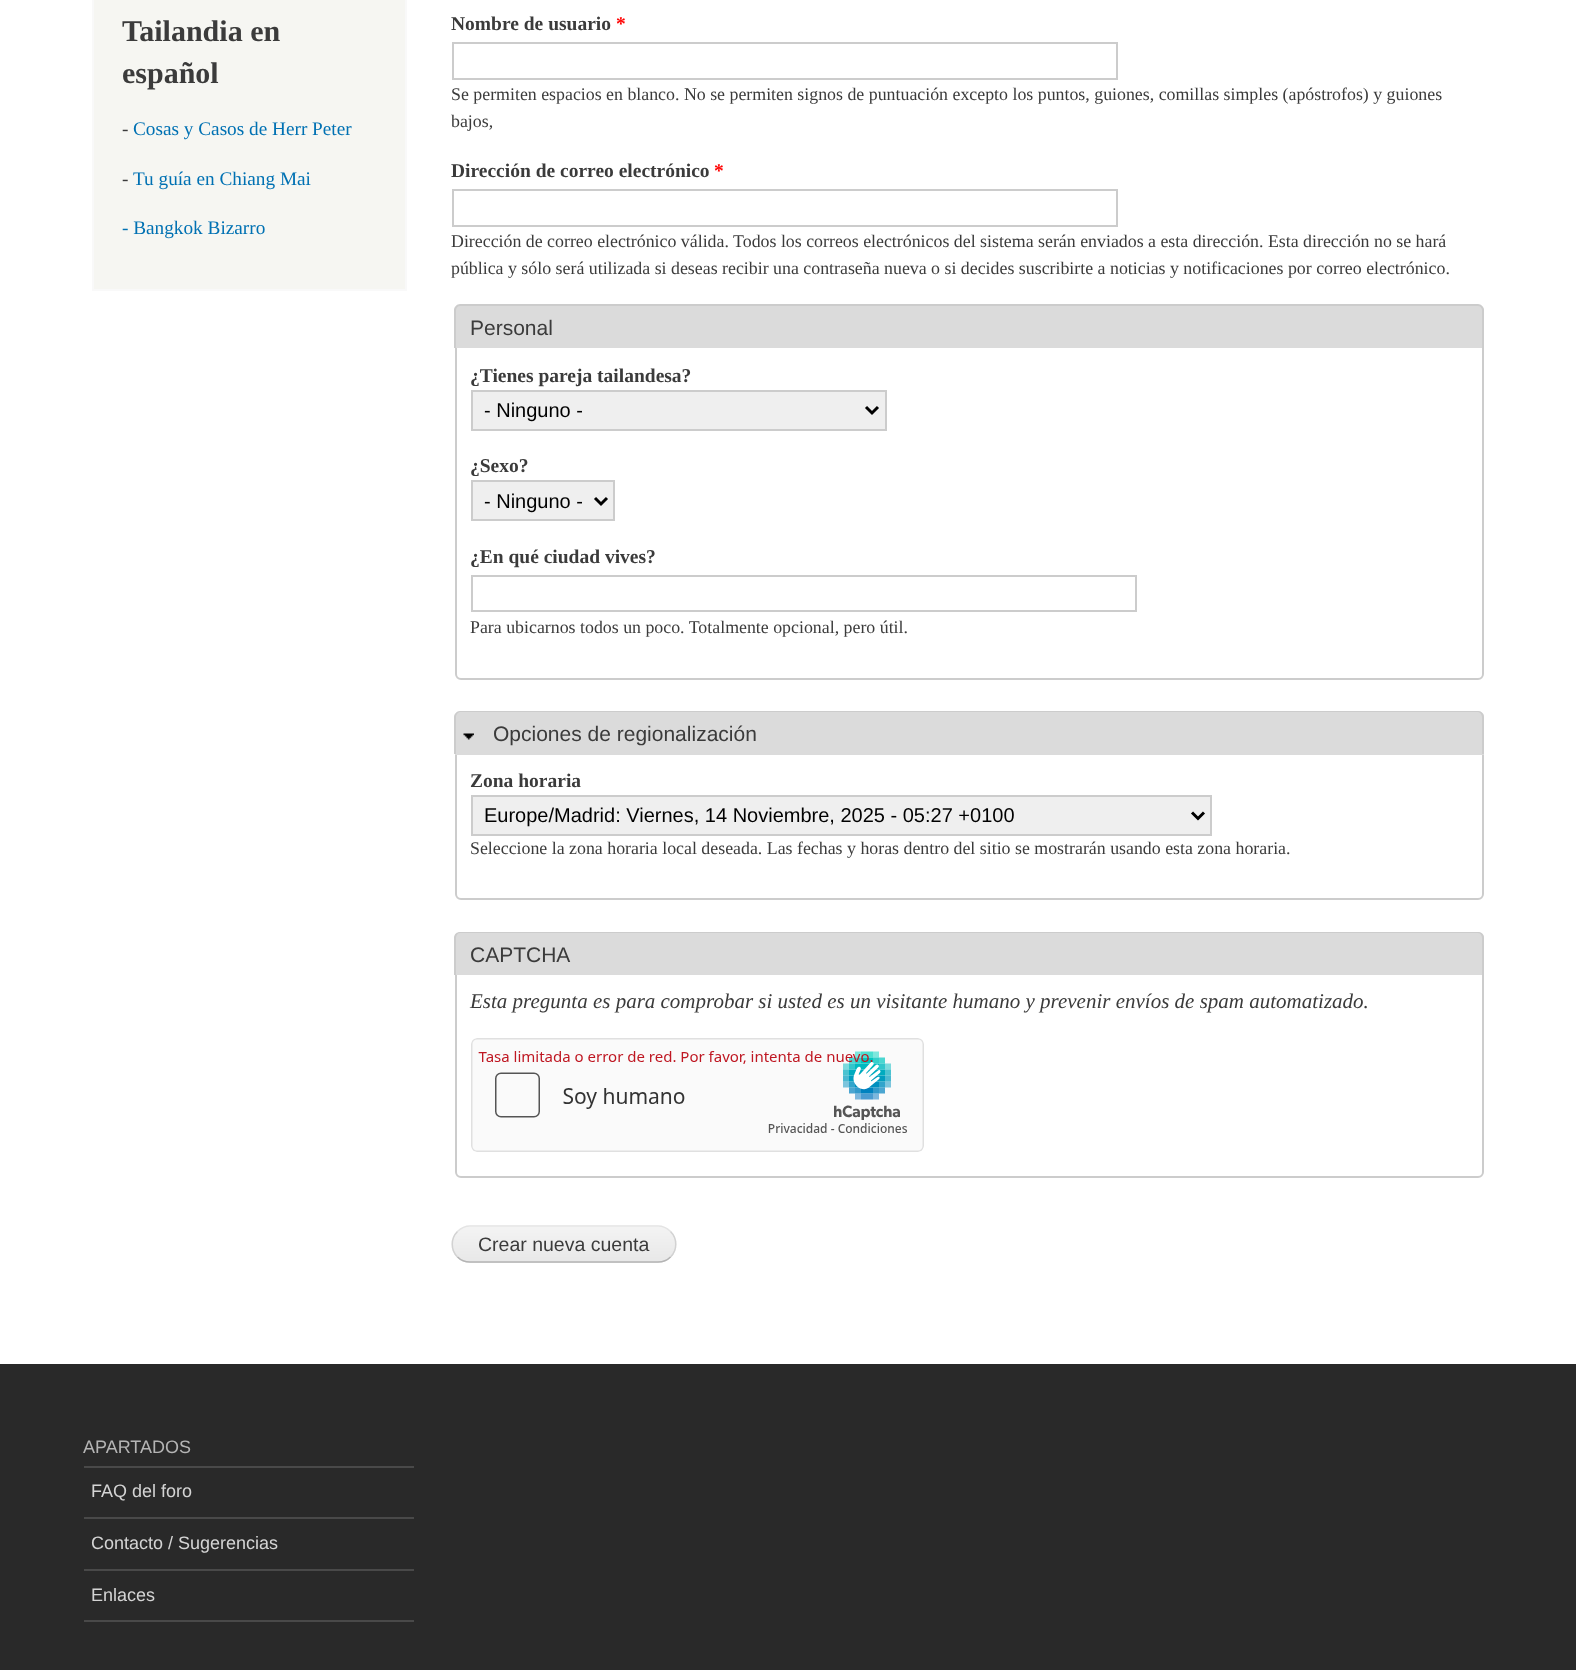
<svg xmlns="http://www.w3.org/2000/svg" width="1576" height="1670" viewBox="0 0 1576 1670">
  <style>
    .t1 { font: bold 30px Liberation Serif; fill: #3b3b3b; }
    .t2 { font: 19.25px Liberation Serif; fill: #3b3b3b; }
    .t3 { font: 19.25px Liberation Serif; fill: #0071b3; }
    .t4 { font: bold 19.5px Liberation Serif; fill: #3b3b3b; }
    .t5 { font: bold 19.5px Liberation Serif; fill: #f00; }
    .t6 { font: 17.85px Liberation Serif; fill: #3b3b3b; }
    .t7 { font: 21px Liberation Sans; fill: #3b3b3b; }
    .t8 { font: 20px Liberation Sans; fill: #000; }
    .t9 { font: italic 21px Liberation Serif; fill: #3b3b3b; }
    .t10 { font: 19.5px Liberation Sans; fill: #3b3b3b; }
    .t11 { font: 18px Liberation Sans; fill: #b4b4b4; }
    .t12 { font: 18px Liberation Sans; fill: #d4d4d4; }
  </style>
  <rect width="100%" height="100%" fill="#fff"/>
  <rect x="93" y="-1" width="313" height="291" fill="#f6f6f2" stroke="#f9f9f9" stroke-width="2"/>
  <text x="122" y="41" class="t1">Tailandia en</text>
  <text x="122" y="83" class="t1">español</text>
  <text x="122" y="135" class="t2">-</text>
  <text x="133" y="135" class="t3">Cosas y Casos de Herr Peter</text>
  <text x="122" y="185" class="t2">-</text>
  <text x="133" y="185" class="t3">Tu guía en Chiang Mai</text>
  <text x="122" y="234" class="t3">- Bangkok Bizarro</text>
  <text x="451" y="30" class="t4">Nombre de usuario</text>
  <text x="616" y="30" class="t5">*</text>
  <rect x="453" y="43" width="664" height="36" fill="none" stroke="#ccc" stroke-width="2"/>
  <text x="451" y="100" class="t6">Se permiten espacios en blanco. No se permiten signos de puntuación excepto los puntos, guiones, comillas simples (apóstrofos) y guiones</text>
  <text x="451" y="127" class="t6">bajos,</text>
  <text x="451" y="177" class="t4">Dirección de correo electrónico</text>
  <text x="714" y="177" class="t5">*</text>
  <rect x="453" y="190" width="664" height="36" fill="none" stroke="#ccc" stroke-width="2"/>
  <text x="451" y="247" class="t6">Dirección de correo electrónico válida. Todos los correos electrónicos del sistema serán enviados a esta dirección. Esta dirección no se hará</text>
  <text x="451" y="274" class="t6">pública y sólo será utilizada si deseas recibir una contraseña nueva o si decides suscribirte a noticias y notificaciones por correo electrónico.</text>
  <rect x="456" y="322" width="1027" height="357" rx="5" fill="none" stroke="#ccc" stroke-width="2"/>
  <path d="M461 305H1478C1481.5 305 1484 307.5 1484 311V348H455V311C455 307.5 457.5 305 461 305Z" fill="#dbdbdb"/>
  <path d="M460 304H1478C1481 304 1484 307 1484 310V348H454V310C454 307 457 304 460 304ZM460 306H1478C1480 306 1482 308 1482 310V348H456V310C456 308 458 306 460 306Z" fill="#ccc" fill-rule="evenodd"/>
  <text x="470" y="335" class="t7">Personal</text>
  <text x="470" y="382" class="t4">¿Tienes pareja tailandesa?</text>
  <rect x="472" y="391" width="414" height="39" fill="#efefef" stroke="#ccc" stroke-width="2"/>
  <path d="M866 407L872 413L878 407" fill="none" stroke="#000" stroke-width="3"/>
  <text x="484" y="417" class="t8">- Ninguno -</text>
  <text x="470" y="472" class="t4">¿Sexo?</text>
  <rect x="472" y="481" width="142" height="39" fill="#efefef" stroke="#ccc" stroke-width="2"/>
  <path d="M595 498L601 504L607 498" fill="none" stroke="#000" stroke-width="3"/>
  <text x="484" y="508" class="t8">- Ninguno -</text>
  <text x="470" y="563" class="t4">¿En qué ciudad vives?</text>
  <rect x="472" y="576" width="664" height="35" fill="none" stroke="#ccc" stroke-width="2"/>
  <text x="470" y="633" class="t6">Para ubicarnos todos un poco. Totalmente opcional, pero útil.</text>
  <rect x="456" y="729" width="1027" height="170" rx="5" fill="none" stroke="#ccc" stroke-width="2"/>
  <path d="M461 711H1478C1481.5 711 1484 713.5 1484 717V755H455V717C455 713.5 457.5 711 461 711Z" fill="#dbdbdb"/>
  <path d="M460 711H1478C1481 711 1484 714 1484 717V754H454V717C454 714 457 711 460 711ZM460 712H1478C1480 712 1482 715 1482 717V754H456V717C456 715 458 712 460 712Z" fill="#ccc" fill-rule="evenodd"/>
  <image x="463" y="733" width="11" height="7" href="images/1.png"/>
  <text x="493" y="741" class="t7">Opciones de regionalización</text>
  <text x="470" y="787" class="t4">Zona horaria</text>
  <rect x="472" y="796" width="739" height="39" fill="#efefef" stroke="#ccc" stroke-width="2"/>
  <path d="M1192 812.5L1198 818.5L1204 812.5" fill="none" stroke="#000" stroke-width="3"/>
  <text x="484" y="822" class="t8">Europe/Madrid: Viernes, 14 Noviembre, 2025 - 05:27 +0100</text>
  <text x="470" y="854" class="t6">Seleccione la zona horaria local deseada. Las fechas y horas dentro del sitio se mostrarán usando esta zona horaria.</text>
  <rect x="456" y="949" width="1027" height="228" rx="5" fill="none" stroke="#ccc" stroke-width="2"/>
  <path d="M461 932H1478C1481.5 932 1484 934.5 1484 938V975H455V938C455 934.5 457.5 932 461 932Z" fill="#dbdbdb"/>
  <path d="M460 932H1478C1481 932 1484 934 1484 938V975H454V938C454 934 457 932 460 932ZM460 933H1478C1480 933 1482 935 1482 938V975H456V938C456 935 458 933 460 933Z" fill="#ccc" fill-rule="evenodd"/>
  <text x="470" y="962" class="t7">CAPTCHA</text>
  <text x="470" y="1008" class="t9">Esta pregunta es para comprobar si usted es un visitante humano y prevenir envíos de spam automatizado.</text>
  <image x="471" y="1038" width="453" height="114" href="images/2.png"/>
  <image x="451" y="1227" width="226" height="36" href="images/3.png"/>
  <path d="M457.5 1231.5C461 1228 465.5 1226 470 1226H658C662.5 1226 667 1228 670.5 1231.5" fill="none" stroke="#e4e4e4" stroke-width="1.5"/>
  <path d="M670.5 1231.5C677.5 1238.5 677.5 1250 670.5 1257" fill="none" stroke="#d2d2d2" stroke-width="1.5"/>
  <path d="M670.5 1257C667 1260.5 662.5 1262 658 1262H470C465.5 1262 461 1260.5 457.5 1257" fill="none" stroke="#b4b4b4" stroke-width="1.5"/>
  <path d="M457.5 1257C450.5 1250 450.5 1238.5 457.5 1231.5" fill="none" stroke="#d2d2d2" stroke-width="1.5"/>
  <text x="478" y="1251" class="t10">Crear nueva cuenta</text>
  <rect x="0" y="1364" width="1576" height="306" fill="#292929"/>
  <rect x="84" y="1466" width="330" height="2" fill="#494949"/>
  <text x="83" y="1453" class="t11">APARTADOS</text>
  <rect x="84" y="1517" width="330" height="2" fill="#494949"/>
  <text x="91" y="1497" class="t12">FAQ del foro</text>
  <rect x="84" y="1569" width="330" height="2" fill="#494949"/>
  <text x="91" y="1549" class="t12">Contacto / Sugerencias</text>
  <rect x="84" y="1620" width="330" height="2" fill="#494949"/>
  <text x="91" y="1601" class="t12">Enlaces</text>
</svg>
